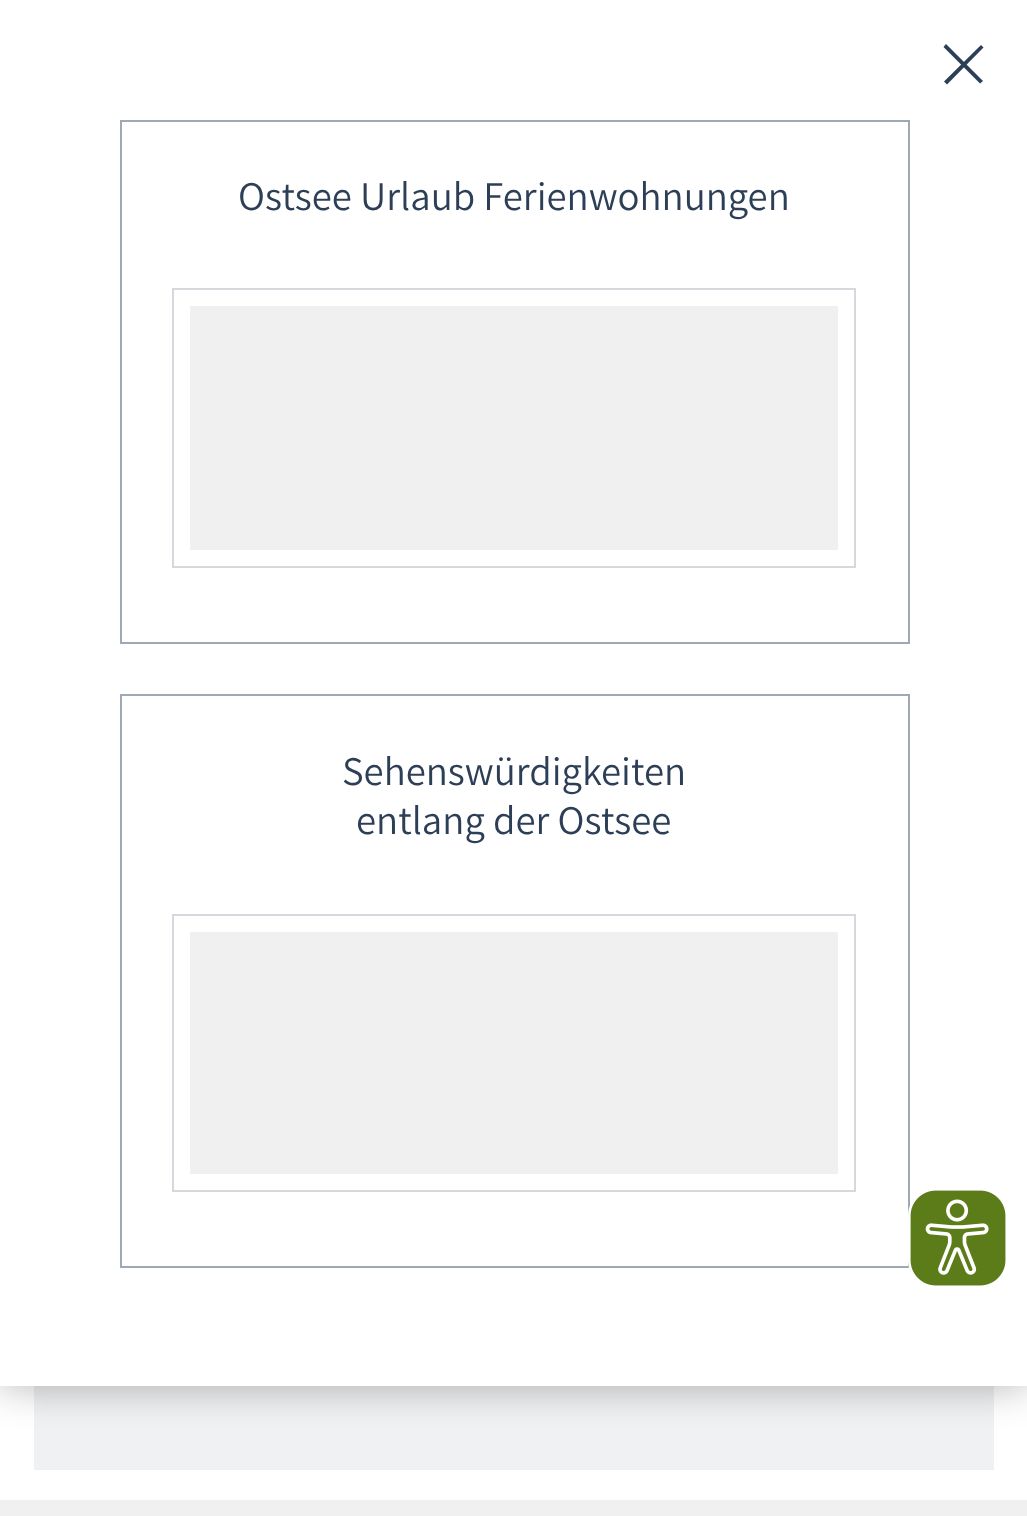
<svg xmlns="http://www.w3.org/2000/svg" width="1027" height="1516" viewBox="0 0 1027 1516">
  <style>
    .t1 { font: 40.75px Assistant; fill: #2d3f57; }
  </style>
  <rect width="100%" height="100%" fill="#fff"/>
  <rect x="34" y="1386" width="960" height="84" fill="#eff1f3"/>
  <rect x="0" y="0" width="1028" height="1386" fill="#0000004d" filter="blur(20px)"/>
  <rect x="0" y="0" width="1027" height="1386" fill="#fff"/>
  <path d="M946 44L983 81L980 83.5L943.5 47Z" fill="#2d3f57"/>
  <path d="M944 81.5L981 45L983.5 47.5L947 84.5Z" fill="#2d3f57"/>
  <rect x="121" y="121" width="788" height="522" fill="none" stroke="#9fa9b6" stroke-width="2"/>
  <text x="238" y="210" class="t1">Ostsee Urlaub Ferienwohnungen</text>
  <rect x="173" y="289" width="682" height="278" fill="none" stroke="#d5d9dd" stroke-width="2"/>
  <rect x="190" y="306" width="648" height="244" fill="#f0f0f0"/>
  <rect x="121" y="695" width="788" height="572" fill="none" stroke="#9fa9b6" stroke-width="2"/>
  <text x="342" y="785" class="t1">Sehenswürdigkeiten</text>
  <text x="356" y="834" class="t1">entlang der Ostsee</text>
  <rect x="173" y="915" width="682" height="276" fill="none" stroke="#d5d9dd" stroke-width="2"/>
  <rect x="190" y="932" width="648" height="242" fill="#f0f0f0"/>
  <image x="908" y="1190" width="98" height="96" href="images/1.png"/>
  <rect x="0" y="1500" width="1027" height="16" fill="#f0f0f0"/>
</svg>
